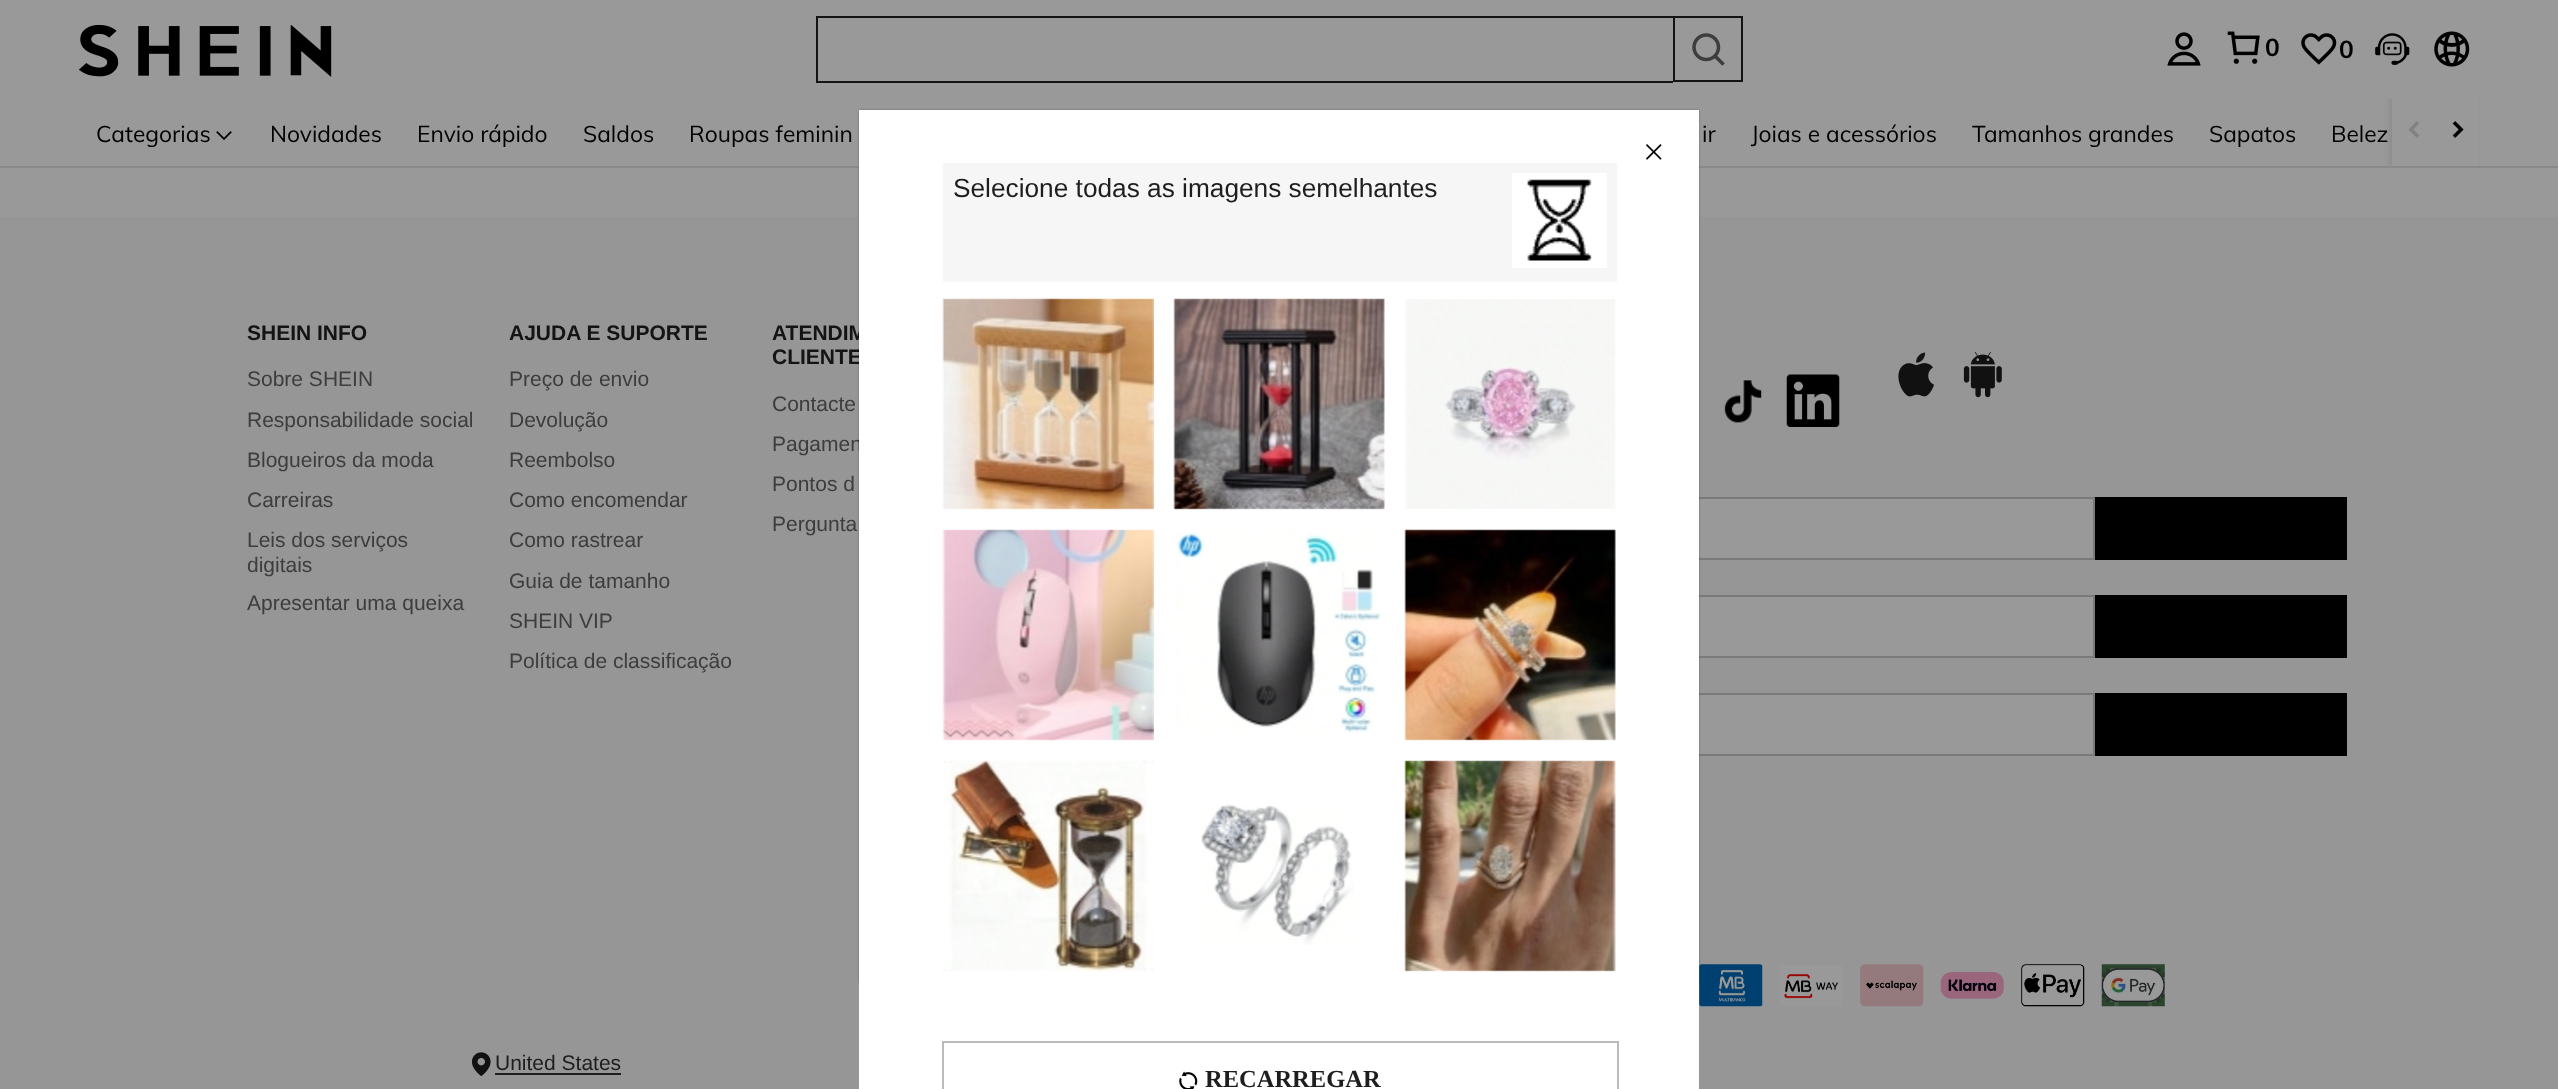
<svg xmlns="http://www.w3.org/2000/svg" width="2558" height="1089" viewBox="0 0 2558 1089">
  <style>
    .t1 { font: bold 24.5px Muli; fill: #000; }
    .t2 { font: 22.75px Muli; fill: #000; }
    .t3 { font: bold 21px Liberation Sans; fill: #141414; }
    .t4 { font: 21px Liberation Sans; fill: #3d3d3d; }
    .t5 { font: 21px Liberation Sans; fill: #1e1e1e; }
    .t6 { font: 26.25px Liberation Sans; fill: #1e1e1e; }
    .t7 { font: bold 24.5px Liberation Serif; fill: #1e1e1e; }
  </style>
  <defs>
    <clipPath id="clip1"><rect x="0" y="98" width="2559" height="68"/></clipPath>
  </defs>
  <rect width="100%" height="100%" fill="#999"/>
  <image x="79" y="25" width="253" height="52" href="images/1.png"/>
  <rect x="816" y="16" width="857" height="2" fill="#141414"/>
  <rect x="816" y="81" width="857" height="2" fill="#141414"/>
  <rect x="816" y="16" width="2" height="66" fill="#141414"/>
  <rect x="1674" y="17" width="68" height="64" fill="none" stroke="#141414" stroke-width="2"/>
  <image x="1692" y="33" width="33" height="33" href="images/2.png"/>
  <image x="2167" y="32" width="34" height="34" href="images/3.png"/>
  <image x="2227" y="31" width="33" height="33" href="images/4.png"/>
  <text x="2265" y="56" class="t1">0</text>
  <image x="2301" y="33" width="36" height="32" href="images/5.png"/>
  <text x="2339" y="58" class="t1">0</text>
  <image x="2375" y="33" width="35" height="32" href="images/6.png"/>
  <image x="2434" y="31" width="36" height="36" href="images/7.png"/>
  <rect x="0" y="166" width="2558" height="2" fill="#898989"/>
  <text x="96" y="142" class="t2">Categorias</text>
  <image x="216" y="131" width="16" height="9" href="images/8.png"/>
  <text x="270" y="142" class="t2">Novidades</text>
  <text x="417" y="142" class="t2">Envio rápido</text>
  <text x="583" y="142" class="t2">Saldos</text>
  <text x="689" y="142" class="t2">Roupas feminin</text>
  <text x="1702" y="142" class="t2">ir</text>
  <text x="1751" y="142" class="t2">Joias e acessórios</text>
  <text x="1972" y="142" class="t2">Tamanhos grandes</text>
  <text x="2209" y="142" class="t2">Sapatos</text>
  <text x="2331" y="142" class="t2">Belez</text>
  <g clip-path="url(#clip1)">
    <rect x="2389" y="98" width="87" height="68" fill="#00000014" filter="blur(2.5px)"/>
  </g>
  <rect x="2392" y="98" width="86" height="68" fill="#999"/>
  <image x="2408" y="121" width="11" height="17" href="images/9.png"/>
  <image x="2452" y="121" width="12" height="17" href="images/10.png"/>
  <rect x="0" y="217" width="2558" height="872" fill="#969696"/>
  <text x="247" y="340" class="t3">SHEIN INFO</text>
  <text x="247" y="386" class="t4">Sobre SHEIN</text>
  <text x="247" y="427" class="t4">Responsabilidade social</text>
  <text x="247" y="467" class="t4">Blogueiros da moda</text>
  <text x="247" y="507" class="t4">Carreiras</text>
  <text x="247" y="547" class="t4">Leis dos serviços</text>
  <text x="247" y="572" class="t4">digitais</text>
  <text x="247" y="610" class="t4">Apresentar uma queixa</text>
  <text x="509" y="340" class="t3">AJUDA E SUPORTE</text>
  <text x="509" y="386" class="t4">Preço de envio</text>
  <text x="509" y="427" class="t4">Devolução</text>
  <text x="509" y="467" class="t4">Reembolso</text>
  <text x="509" y="507" class="t4">Como encomendar</text>
  <text x="509" y="547" class="t4">Como rastrear</text>
  <text x="509" y="588" class="t4">Guia de tamanho</text>
  <text x="509" y="628" class="t4">SHEIN VIP</text>
  <text x="509" y="668" class="t4">Política de classificação</text>
  <text x="772" y="340" class="t3">ATENDIM</text>
  <text x="772" y="364" class="t3">CLIENTE</text>
  <text x="772" y="411" class="t4">Contacte</text>
  <text x="772" y="451" class="t4">Pagamen</text>
  <text x="772" y="491" class="t4">Pontos d</text>
  <text x="772" y="531" class="t4">Pergunta</text>
  <image x="1724" y="380" width="38" height="43" href="images/11.png"/>
  <image x="1786" y="374" width="54" height="53" href="images/12.png"/>
  <image x="1898" y="352" width="37" height="45" href="images/13.png"/>
  <image x="1963" y="352" width="39" height="46" href="images/14.png"/>
  <rect x="1699" y="499" width="394" height="59" fill="#999"/>
  <rect x="1298" y="498" width="796" height="61" fill="none" stroke="#7a7a7a" stroke-width="2"/>
  <rect x="2095" y="497" width="252" height="63" fill="#000"/>
  <rect x="1699" y="597" width="394" height="59" fill="#999"/>
  <rect x="1438" y="596" width="656" height="61" fill="none" stroke="#7a7a7a" stroke-width="2"/>
  <rect x="2095" y="595" width="252" height="63" fill="#000"/>
  <rect x="1699" y="695" width="394" height="59" fill="#999"/>
  <rect x="1438" y="694" width="656" height="61" fill="none" stroke="#7a7a7a" stroke-width="2"/>
  <rect x="2095" y="693" width="252" height="63" fill="#000"/>
  <image x="1699" y="964" width="64" height="43" href="images/15.png"/>
  <image x="1780" y="965" width="62" height="41" href="images/16.png"/>
  <image x="1860" y="964" width="64" height="43" href="images/17.png"/>
  <image x="1940" y="972" width="64" height="27" href="images/18.png"/>
  <image x="2021" y="964" width="64" height="43" href="images/19.png"/>
  <image x="2101" y="964" width="64" height="43" href="images/20.png"/>
  <image x="471" y="1052" width="20" height="25" href="images/21.png"/>
  <text x="495" y="1070" class="t5">United States</text>
  <rect x="495" y="1073" width="126" height="2" fill="#1e1e1e"/>
  <rect x="859" y="110" width="840" height="872" fill="#0000004d" filter="blur(1px)"/>
  <rect x="859" y="110" width="840" height="979" fill="#fff"/>
  <image x="1645" y="144" width="17" height="16" href="images/22.png"/>
  <rect x="943" y="163" width="674" height="119" fill="#f6f6f6"/>
  <text x="953" y="197" class="t6">Selecione todas as imagens semelhantes</text>
  <rect x="1512" y="173" width="95" height="95" fill="#fff"/>
  <image x="1527" y="179" width="65" height="82" href="images/23.png"/>
  <image x="942" y="298" width="212" height="212" href="images/24.png"/>
  <image x="1173" y="298" width="212" height="212" href="images/25.png"/>
  <image x="1405" y="299" width="211" height="210" href="images/26.png"/>
  <image x="942" y="529" width="212" height="212" href="images/27.png"/>
  <image x="1176" y="530" width="205" height="203" href="images/28.png"/>
  <image x="1404" y="529" width="212" height="212" href="images/29.png"/>
  <image x="943" y="760" width="211" height="211" href="images/30.png"/>
  <image x="1201" y="804" width="154" height="141" href="images/31.png"/>
  <image x="1404" y="760" width="212" height="212" href="images/32.png"/>
  <rect x="943" y="1042" width="675" height="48" fill="none" stroke="#bbb" stroke-width="2"/>
  <image x="1179" y="1071" width="19" height="18" href="images/33.png"/>
  <text x="1205" y="1087" class="t7">RECARREGAR</text>
</svg>
